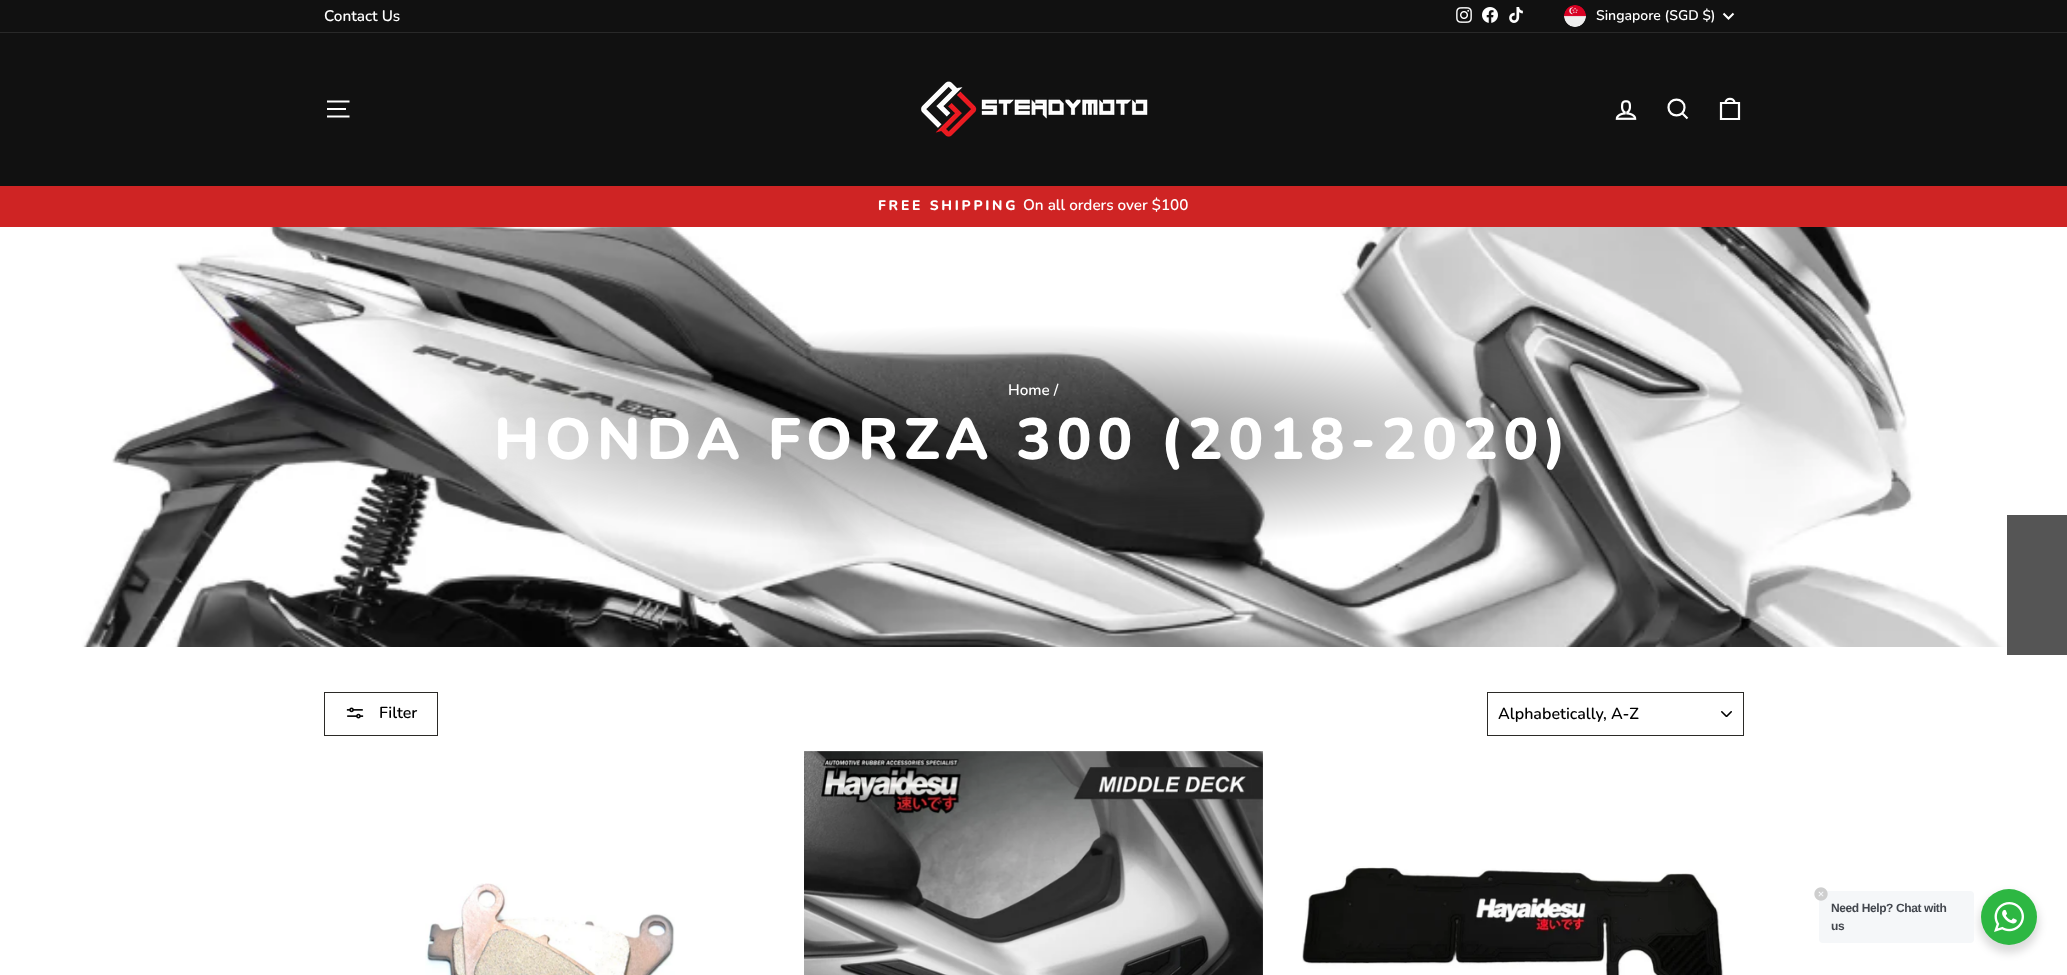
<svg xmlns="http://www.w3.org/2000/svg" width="2067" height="975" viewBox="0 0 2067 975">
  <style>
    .t1 { font: 600 15.25px Nunito; fill: #fff; }
    .t2 { font: 600 14px Nunito; fill: #fff; }
    .t3 { font: 800 13.75px Nunito; letter-spacing: 2.75px; fill: #fff; }
    .t4 { font: 800 58px Nunito; letter-spacing: 5.8px; fill: #fff; }
    .t5 { font: 600 16px Nunito; fill: #000; }
    .t6 { font: bold 12px Liberation Sans; letter-spacing: -0.4px; fill: #43474e; }
  </style>
  <rect width="100%" height="100%" fill="#fff"/>
  <rect x="0" y="0" width="2067" height="32" fill="#111"/>
  <text x="324" y="21" class="t1">Contact Us</text>
  <image x="1456" y="7" width="16" height="16" href="images/1.png"/>
  <image x="1482" y="7" width="16" height="16" href="images/2.png"/>
  <image x="1509" y="7" width="14" height="16" href="images/3.png"/>
  <image x="1564" y="5" width="22" height="22" href="images/4.png"/>
  <text x="1596" y="20" class="t2">Singapore (SGD $)</text>
  <path d="M1723.5 13.5L1728.5 18.5L1733.5 13.5" fill="none" stroke="#fff" stroke-width="2"/>
  <rect x="0" y="33" width="2067" height="153" fill="#111"/>
  <rect x="0" y="32" width="2067" height="1" fill="#292929"/>
  <path d="M327 101.5H349.5M327 109H346M327 116.5H349.5" fill="none" stroke="#fff" stroke-width="2.2"/>
  <image x="920" y="81" width="228" height="56" href="images/5.png"/>
  <image x="1615" y="100" width="22" height="20" href="images/6.png"/>
  <path d="M1684.5 107.5C1684.5 118 1668.5 118 1668.5 107.5C1668.5 97 1684.5 97 1684.5 107.5ZM1687.5 118.5L1682.5 113.5" fill="none" stroke="#fff" stroke-width="2.2"/>
  <path d="M1721 103H1739V119H1721ZM1725.5 103C1725.5 97.5 1734.5 97.5 1734.5 103" fill="none" stroke="#fff" stroke-width="2.2"/>
  <rect x="0" y="186" width="2067" height="41" fill="#cf2424"/>
  <text x="878" y="210" class="t3">FREE SHIPPING</text>
  <text x="1023" y="210" class="t1">On all orders over $100</text>
  <image x="0" y="227" width="2067" height="420" href="images/7.png"/>
  <text x="1008" y="395" class="t1">Home /</text>
  <text x="494" y="459" class="t4">HONDA FORZA 300 (2018-2020)</text>
  <rect x="324.5" y="692.5" width="113" height="43" fill="none" stroke="#2b2a27"/>
  <image x="346" y="707" width="18" height="12" href="images/8.png"/>
  <text x="379" y="718" class="t5">Filter</text>
  <image x="1721" y="711" width="11" height="6" href="images/9.png"/>
  <rect x="1487.5" y="692.5" width="256" height="43" fill="none" stroke="#2b2a27"/>
  <text x="1498" y="719" class="t5">Alphabetically, A-Z</text>
  <image x="425" y="883" width="250" height="92" href="images/10.png"/>
  <image x="804" y="751" width="459" height="224" href="images/11.png"/>
  <image x="1302" y="866" width="422" height="109" href="images/12.png"/>
  <rect x="2007" y="515" width="60" height="140" fill="#555"/>
  <rect x="1979" y="893" width="60" height="60" rx="30" fill="#00000024" filter="blur(4px)"/>
  <rect x="1819" y="891" width="155" height="52" rx="4" fill="#f5f7f9"/>
  <image x="1814" y="887" width="14" height="14" href="images/13.png"/>
  <text x="1831" y="912" class="t6">Need Help? Chat with</text>
  <text x="1831" y="930" class="t6">us</text>
  <circle cx="2009" cy="917" r="28" fill="#2db742"/>
  <image x="1994" y="902" width="30" height="30" href="images/14.png"/>
</svg>
